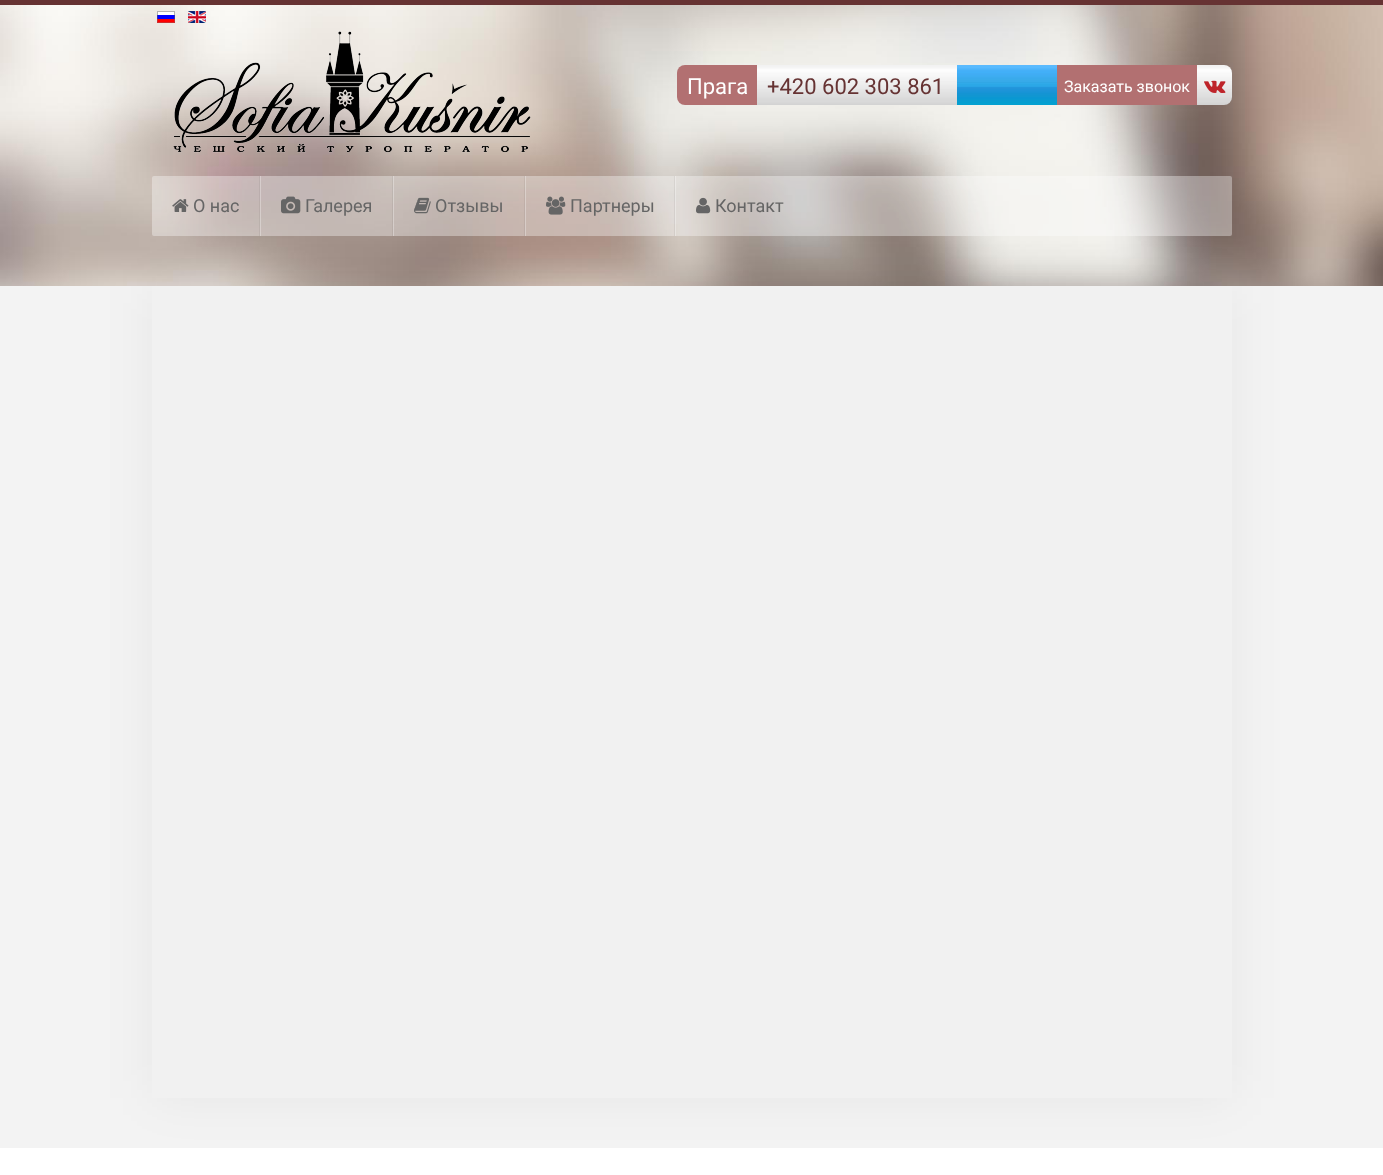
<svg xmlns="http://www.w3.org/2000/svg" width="1383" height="1175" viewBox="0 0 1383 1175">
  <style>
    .t1 { font: 22px Roboto; fill: #fff; }
    .t2 { font: 22px Roboto; fill: #633; }
    .t3 { font: 16px Roboto; fill: #fff; }
    .t4 { font: 18px Roboto; fill: #656565; }
  </style>
  <rect width="100%" height="100%" fill="#f3f3f3"/>
  <rect x="0" y="0" width="1383" height="5" fill="#633"/>
  <image x="0" y="5" width="1383" height="281" href="images/1.png"/>
  <image x="157" y="11" width="18" height="12" href="images/2.png"/>
  <image x="188" y="11" width="18" height="12" href="images/3.png"/>
  <image x="173" y="31" width="358" height="122" href="images/4.png"/>
  <image x="677" y="65" width="80" height="40" href="images/5.png"/>
  <text x="687" y="94" class="t1">Прага</text>
  <image x="757" y="65" width="200" height="40" href="images/6.png"/>
  <text x="767" y="94" class="t2">+420 602 303 861</text>
  <image x="957" y="65" width="100" height="40" href="images/7.png"/>
  <rect x="1057" y="65" width="140" height="40" fill="#b27071"/>
  <text x="1064" y="92" class="t3">Заказать звонок</text>
  <image x="1197" y="65" width="35" height="40" href="images/8.png"/>
  <image x="1204" y="80" width="22" height="13" href="images/9.png"/>
  <rect x="152" y="176" width="1080" height="60" rx="2" fill="#ffffff33"/>
  <rect x="152" y="176" width="1080" height="60" rx="2" fill="#ffffff33"/>
  <rect x="152" y="286" width="1080" height="812" fill="#0000000d" filter="blur(25px)"/>
  <rect x="259" y="176" width="1" height="60" fill="#0000000d"/>
  <image x="172" y="199" width="17" height="13" href="images/10.png"/>
  <text x="193" y="212" class="t4">О нас</text>
  <rect x="392" y="176" width="1" height="60" fill="#0000000d"/>
  <rect x="260" y="176" width="1" height="60" fill="#ffffff4d"/>
  <image x="281" y="196" width="20" height="18" href="images/11.png"/>
  <text x="305" y="212" class="t4">Галерея</text>
  <rect x="524" y="176" width="1" height="60" fill="#0000000d"/>
  <rect x="393" y="176" width="1" height="60" fill="#ffffff4d"/>
  <image x="414" y="197" width="17" height="17" href="images/12.png"/>
  <text x="435" y="212" class="t4">Отзывы</text>
  <rect x="674" y="176" width="1" height="60" fill="#0000000d"/>
  <rect x="525" y="176" width="1" height="60" fill="#ffffff4d"/>
  <image x="546" y="196" width="20" height="19" href="images/13.png"/>
  <text x="570" y="212" class="t4">Партнеры</text>
  <rect x="675" y="176" width="1" height="60" fill="#ffffff4d"/>
  <image x="696" y="197" width="15" height="17" href="images/14.png"/>
  <text x="715" y="212" class="t4">Контакт</text>
  <rect x="152" y="286" width="1080" height="812" fill="#f1f1f1"/>
  <rect x="0" y="1148" width="1383" height="27" fill="#fff"/>
</svg>
